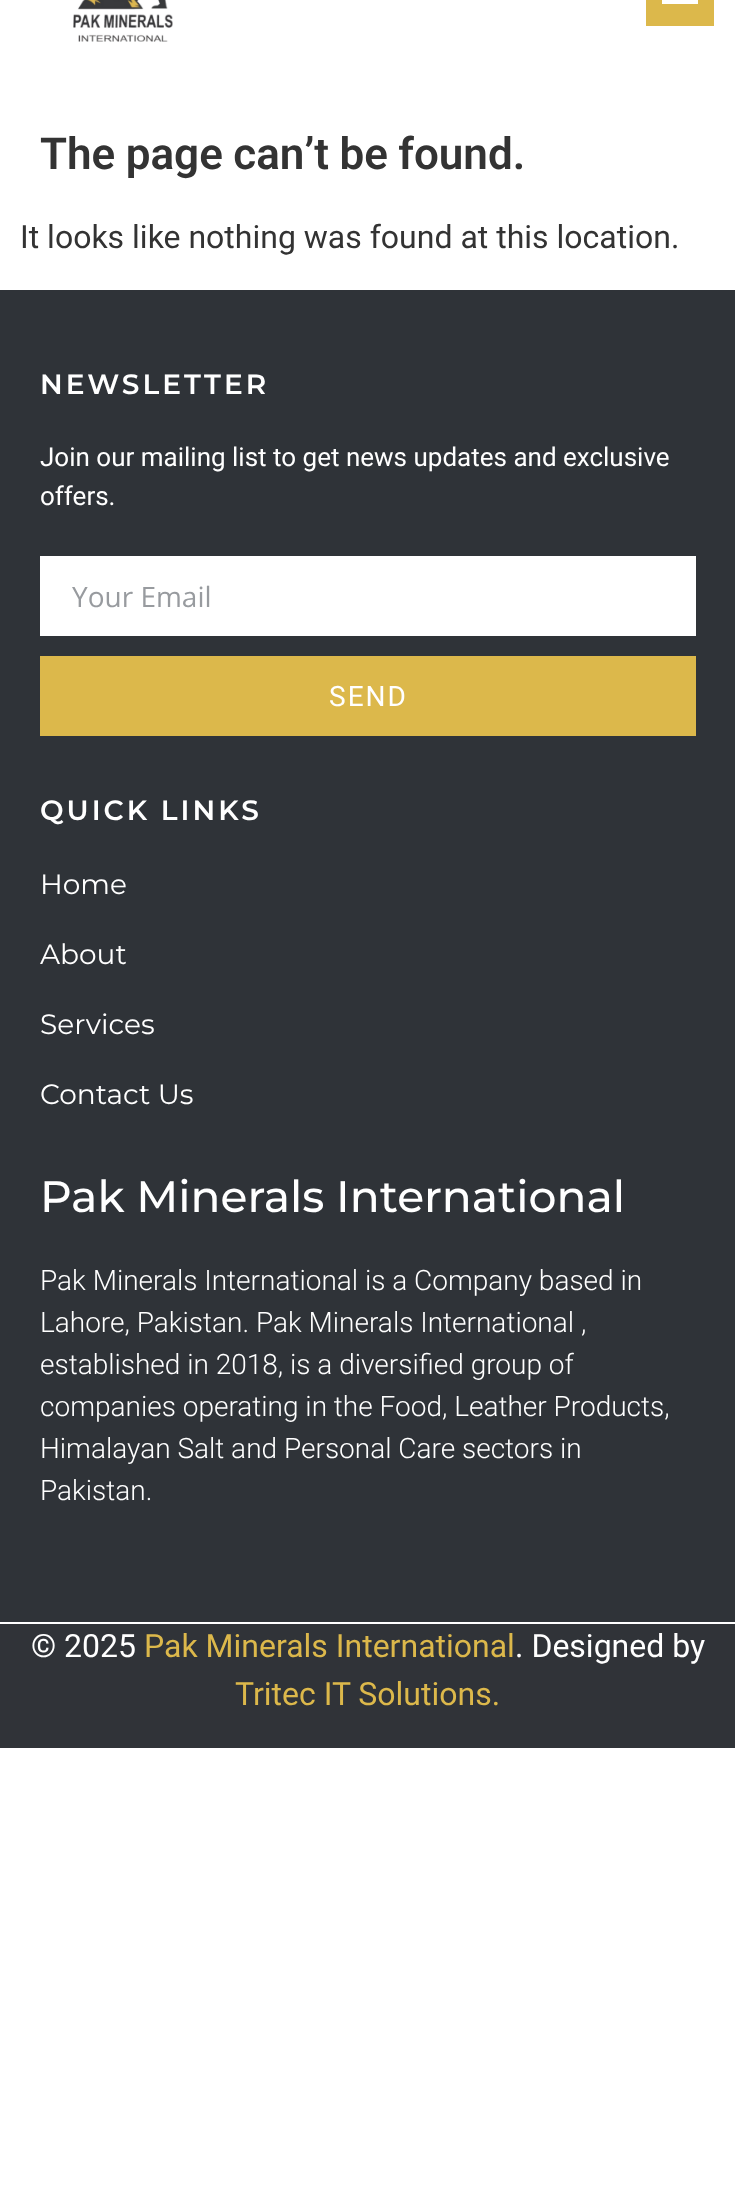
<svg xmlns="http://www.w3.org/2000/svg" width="735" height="2208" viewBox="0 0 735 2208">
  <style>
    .t1 { font: 600 44px Roboto; fill: #333; }
    .t2 { font: 32px Roboto; fill: #333; }
    .t3 { font: 600 28px Montserrat; letter-spacing: 3px; fill: #fff; }
    .t4 { font: 26px Roboto; fill: #fff; }
    .t5 { font: 28px Open Sans; fill: #989b9f; }
    .t6 { font: 28px Roboto; letter-spacing: 2px; fill: #fff; }
    .t7 { font: 28px Montserrat; fill: #fff; }
    .t8 { font: 500 44px Montserrat; fill: #fff; }
    .t9 { font: 300 28px Roboto; fill: #fff; }
    .t10 { font: 32px Roboto; fill: #fff; }
    .t11 { font: 32px Roboto; fill: #dcb84b; }
  </style>
  <rect width="100%" height="100%" fill="#fff"/>
  <image x="73" y="0" width="100" height="42" href="images/1.png"/>
  <rect x="646" y="0" width="68" height="26" fill="#dcb84b"/>
  <rect x="662" y="0" width="36" height="4" fill="#fff"/>
  <text x="40" y="169" word-spacing="-0.5" class="t1">The page can’t be found.</text>
  <text x="20" y="248" class="t2">It looks like nothing was found at this location.</text>
  <rect x="0" y="290" width="735" height="1332" fill="#2f3338"/>
  <text x="40" y="394" class="t3">NEWSLETTER</text>
  <text x="40" y="466" class="t4">Join our mailing list to get news updates and exclusive</text>
  <text x="40" y="505" class="t4">offers.</text>
  <rect x="40" y="556" width="656" height="80" fill="#fff"/>
  <text x="72" y="607" class="t5">Your Email</text>
  <rect x="40" y="656" width="656" height="80" fill="#dcb84b"/>
  <text x="329" y="706" class="t6">SEND</text>
  <text x="40" y="820" class="t3">QUICK LINKS</text>
  <text x="40" y="894" class="t7">Home</text>
  <text x="40" y="964" class="t7">About</text>
  <text x="40" y="1034" class="t7">Services</text>
  <text x="40" y="1104" class="t7">Contact Us</text>
  <text x="40" y="1212" class="t8">Pak Minerals International</text>
  <text x="40" y="1290" class="t9">Pak Minerals International is a Company based in</text>
  <text x="40" y="1332" class="t9">Lahore, Pakistan. Pak Minerals International ,</text>
  <text x="40" y="1374" class="t9">established in 2018, is a diversified group of</text>
  <text x="40" y="1416" class="t9">companies operating in the Food, Leather Products,</text>
  <text x="40" y="1458" class="t9">Himalayan Salt and Personal Care sectors in</text>
  <text x="40" y="1500" class="t9">Pakistan.</text>
  <rect x="0" y="1624" width="735" height="124" fill="#303338"/>
  <text x="31" y="1657" class="t10">© 2025</text>
  <text x="144" y="1657" class="t11">Pak Minerals International</text>
  <text x="515" y="1657" class="t10">. Designed by</text>
  <text x="235" y="1705" class="t11">Tritec IT Solutions.</text>
</svg>
